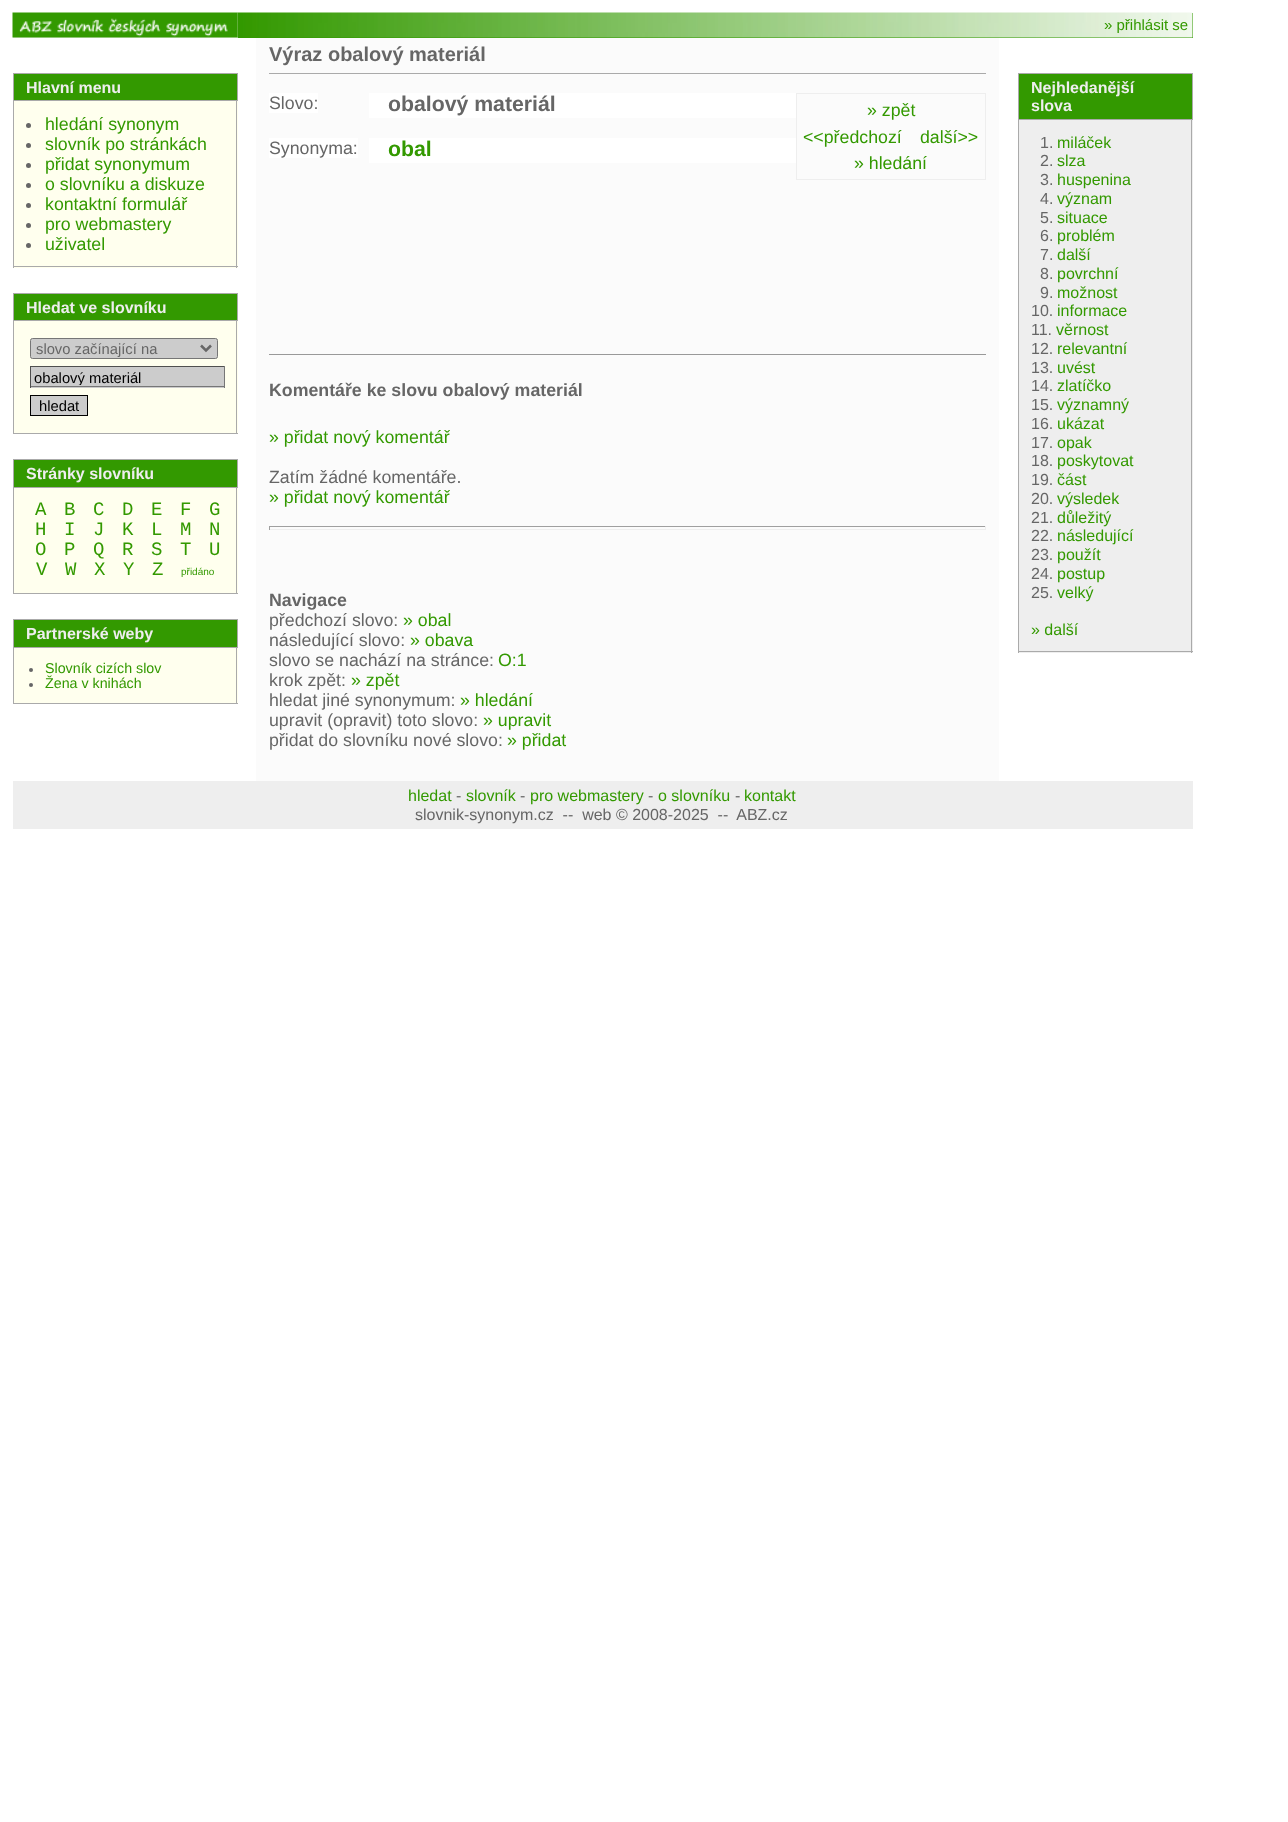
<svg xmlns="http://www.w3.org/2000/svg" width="1288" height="1822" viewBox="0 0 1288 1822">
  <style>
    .t1 { font: 15px Liberation Sans; fill: #390; }
    .t2 { font: bold 20px Liberation Sans; fill: #666; }
    .t3 { font: 17.75px Liberation Sans; fill: #666; }
    .t4 { font: bold 21.25px Liberation Sans; fill: #666; }
    .t5 { font: bold 21.25px Liberation Sans; fill: #390; }
    .t6 { font: 17.75px Liberation Sans; fill: #390; }
    .t7 { font: bold 17.75px Liberation Sans; fill: #666; }
    .t8 { font: bold 16px Liberation Sans; fill: #eee; }
    .t9 { font: 14.75px Liberation Sans; fill: #666; }
    .t10 { font: 14.75px Liberation Sans; fill: #000; }
    .t11 { font: 19px Liberation Mono; fill: #390; }
    .t12 { font: 10px Liberation Sans; fill: #390; }
    .t13 { font: 14.25px Liberation Sans; fill: #390; }
    .t14 { font: 16px Liberation Sans; fill: #666; }
    .t15 { font: 16px Liberation Sans; fill: #390; }
  </style>
  <defs>
    <clipPath id="clip1"><rect x="34" y="369" width="187" height="16"/></clipPath>
  </defs>
  <rect width="100%" height="100%" fill="#fff"/>
  <rect x="13" y="13" width="225" height="25" fill="#eee"/>
  <image x="12" y="12" width="226" height="26" href="images/1.png"/>
  <rect x="238" y="13" width="955" height="25" fill="#390"/>
  <image x="237" y="12" width="956" height="26" href="images/2.png"/>
  <text x="1104" y="30" class="t1">» přihlásit se</text>
  <rect x="256" y="38" width="743" height="743" fill="#fbfbfb"/>
  <rect x="269" y="73" width="717" height="1" fill="#aaa"/>
  <text x="269" y="61" class="t2">Výraz obalový materiál</text>
  <rect x="269" y="93" width="49" height="20" fill="#fff"/>
  <text x="269" y="109" class="t3">Slovo:</text>
  <rect x="369" y="93" width="427" height="25" fill="#fff"/>
  <text x="388" y="111" class="t4">obalový materiál</text>
  <rect x="269" y="138" width="89" height="20" fill="#fff"/>
  <text x="269" y="154" class="t3">Synonyma:</text>
  <rect x="369" y="138" width="427" height="25" fill="#fff"/>
  <text x="388" y="156" class="t5">obal</text>
  <rect x="796.5" y="93.5" width="189" height="86" fill="none" stroke="#eee"/>
  <text x="867" y="116" class="t6">» zpět</text>
  <text x="803" y="143" class="t6">&lt;&lt;předchozí</text>
  <text x="920" y="143" class="t6">další&gt;&gt;</text>
  <text x="854" y="169" class="t6">» hledání</text>
  <rect x="269" y="354" width="717" height="1" fill="#999"/>
  <text x="269" y="396" class="t7">Komentáře ke slovu obalový materiál</text>
  <text x="269" y="443" class="t6">» přidat nový komentář</text>
  <text x="269" y="483" class="t3">Zatím žádné komentáře.</text>
  <text x="269" y="503" class="t6">» přidat nový komentář</text>
  <rect x="269" y="526" width="717" height="1" fill="#9f9f9f"/>
  <rect x="985" y="526" width="1" height="4" fill="#eee"/>
  <rect x="269" y="529" width="717" height="1" fill="#eee"/>
  <rect x="269" y="526" width="1" height="4" fill="#9f9f9f"/>
  <text x="269" y="606" class="t7">Navigace</text>
  <text x="269" y="626" class="t3">předchozí slovo:</text>
  <text x="403" y="626" class="t6">» obal</text>
  <text x="269" y="646" class="t3">následující slovo:</text>
  <text x="410" y="646" class="t6">» obava</text>
  <text x="269" y="666" class="t3">slovo se nachází na stránce:</text>
  <text x="498" y="666" class="t6">O:1</text>
  <text x="269" y="686" class="t3">krok zpět:</text>
  <text x="351" y="686" class="t6">» zpět</text>
  <text x="269" y="706" class="t3">hledat jiné synonymum:</text>
  <text x="460" y="706" class="t6">» hledání</text>
  <text x="269" y="726" class="t3">upravit (opravit) toto slovo:</text>
  <text x="483" y="726" class="t6">» upravit</text>
  <text x="269" y="746" class="t3">přidat do slovníku nové slovo:</text>
  <text x="507" y="746" class="t6">» přidat</text>
  <rect x="14" y="101" width="224" height="167" fill="#ffe"/>
  <rect x="13.5" y="73.5" width="224" height="27" fill="#390" stroke="#aaa"/>
  <text x="26" y="93" class="t8">Hlavní menu</text>
  <rect x="236" y="101" width="1" height="167" fill="#aaa"/>
  <rect x="13" y="266" width="225" height="1" fill="#aaa"/>
  <rect x="13" y="101" width="1" height="167" fill="#aaa"/>
  <circle cx="28.5" cy="125.5" r="2.5" fill="#666"/>
  <text x="45" y="130" class="t6">hledání synonym</text>
  <circle cx="28.5" cy="145.5" r="2.5" fill="#666"/>
  <text x="45" y="150" class="t6">slovník po stránkách</text>
  <circle cx="28.5" cy="165.5" r="2.5" fill="#666"/>
  <text x="45" y="170" class="t6">přidat synonymum</text>
  <circle cx="28.5" cy="185.5" r="2.5" fill="#666"/>
  <text x="45" y="190" class="t6">o slovníku a diskuze</text>
  <circle cx="28.5" cy="205.5" r="2.5" fill="#666"/>
  <text x="45" y="210" class="t6">kontaktní formulář</text>
  <circle cx="28.5" cy="225.5" r="2.5" fill="#666"/>
  <text x="45" y="230" class="t6">pro webmastery</text>
  <circle cx="28.5" cy="245.5" r="2.5" fill="#666"/>
  <text x="45" y="250" class="t6">uživatel</text>
  <rect x="14" y="321" width="224" height="112" fill="#ffe"/>
  <rect x="13.5" y="293.5" width="224" height="27" fill="#390" stroke="#aaa"/>
  <text x="26" y="313" class="t8">Hledat ve slovníku</text>
  <rect x="236" y="321" width="1" height="113" fill="#aaa"/>
  <rect x="13" y="433" width="225" height="1" fill="#aaa"/>
  <rect x="13" y="321" width="1" height="113" fill="#aaa"/>
  <rect x="30.5" y="338.5" width="187" height="20" rx="2" fill="#ccc" stroke="#767676"/>
  <path d="M201 345.5L206 350.5L211 345.5" fill="none" stroke="#666" stroke-width="2.5"/>
  <text x="36" y="354" class="t9">slovo začínající na</text>
  <rect x="31" y="367" width="193" height="21" fill="#ccc"/>
  <rect x="30" y="366" width="195" height="1" fill="#4f4f4f"/>
  <rect x="224" y="366" width="1" height="22" fill="#767676"/>
  <rect x="30" y="386" width="195" height="1" fill="#767676"/>
  <rect x="30" y="366" width="1" height="22" fill="#4f4f4f"/>
  <g clip-path="url(#clip1)">
    <text x="34" y="383" class="t10">obalový materiál</text>
  </g>
  <rect x="30.5" y="395.5" width="57" height="20" fill="#ccc" stroke="#000"/>
  <text x="39" y="411" class="t10">hledat</text>
  <rect x="14" y="488" width="224" height="105" fill="#ffe"/>
  <rect x="13.5" y="459.5" width="224" height="28" fill="#390" stroke="#aaa"/>
  <text x="26" y="479" class="t8">Stránky slovníku</text>
  <rect x="236" y="488" width="1" height="106" fill="#aaa"/>
  <rect x="13" y="593" width="225" height="1" fill="#aaa"/>
  <rect x="13" y="488" width="1" height="106" fill="#aaa"/>
  <text x="35" y="515" class="t11">A</text>
  <text x="64" y="515" class="t11">B</text>
  <text x="93" y="515" class="t11">C</text>
  <text x="122" y="515" class="t11">D</text>
  <text x="151" y="515" class="t11">E</text>
  <text x="180" y="515" class="t11">F</text>
  <text x="209" y="515" class="t11">G</text>
  <text x="35" y="535" class="t11">H</text>
  <text x="64" y="535" class="t11">I</text>
  <text x="93" y="535" class="t11">J</text>
  <text x="122" y="535" class="t11">K</text>
  <text x="151" y="535" class="t11">L</text>
  <text x="180" y="535" class="t11">M</text>
  <text x="209" y="535" class="t11">N</text>
  <text x="35" y="555" class="t11">O</text>
  <text x="64" y="555" class="t11">P</text>
  <text x="93" y="555" class="t11">Q</text>
  <text x="122" y="555" class="t11">R</text>
  <text x="151" y="555" class="t11">S</text>
  <text x="180" y="555" class="t11">T</text>
  <text x="209" y="555" class="t11">U</text>
  <text x="36" y="575" class="t11">V</text>
  <text x="65" y="575" class="t11">W</text>
  <text x="94" y="575" class="t11">X</text>
  <text x="123" y="575" class="t11">Y</text>
  <text x="152" y="575" class="t11">Z</text>
  <text x="181" y="575" class="t12">přidáno</text>
  <rect x="14" y="648" width="224" height="55" fill="#ffe"/>
  <rect x="13.5" y="619.5" width="224" height="28" fill="#390" stroke="#aaa"/>
  <text x="26" y="639" class="t8">Partnerské weby</text>
  <rect x="236" y="648" width="1" height="56" fill="#aaa"/>
  <rect x="13" y="703" width="225" height="1" fill="#aaa"/>
  <rect x="13" y="648" width="1" height="56" fill="#aaa"/>
  <circle cx="31" cy="670" r="2" fill="#666"/>
  <text x="45" y="673" class="t13">Slovník cizích slov</text>
  <circle cx="31" cy="685" r="2" fill="#666"/>
  <text x="45" y="688" class="t13">Žena v knihách</text>
  <rect x="1019" y="120" width="174" height="533" fill="#eee"/>
  <rect x="1018.5" y="73.5" width="174" height="46" fill="#390" stroke="#aaa"/>
  <text x="1031" y="93" class="t8">Nejhledanější</text>
  <text x="1031" y="111" class="t8">slova</text>
  <rect x="1191" y="120" width="1" height="533" fill="#aaa"/>
  <rect x="1018" y="651" width="175" height="1" fill="#aaa"/>
  <rect x="1018" y="120" width="1" height="533" fill="#aaa"/>
  <text x="1040" y="148" class="t14">1.</text>
  <text x="1057" y="148" class="t15">miláček</text>
  <text x="1040" y="166" class="t14">2.</text>
  <text x="1057" y="166" class="t15">slza</text>
  <text x="1040" y="185" class="t14">3.</text>
  <text x="1057" y="185" class="t15">huspenina</text>
  <text x="1040" y="204" class="t14">4.</text>
  <text x="1057" y="204" class="t15">význam</text>
  <text x="1040" y="223" class="t14">5.</text>
  <text x="1057" y="223" class="t15">situace</text>
  <text x="1040" y="241" class="t14">6.</text>
  <text x="1057" y="241" class="t15">problém</text>
  <text x="1040" y="260" class="t14">7.</text>
  <text x="1057" y="260" class="t15">další</text>
  <text x="1040" y="279" class="t14">8.</text>
  <text x="1057" y="279" class="t15">povrchní</text>
  <text x="1040" y="298" class="t14">9.</text>
  <text x="1057" y="298" class="t15">možnost</text>
  <text x="1031" y="316" class="t14">10.</text>
  <text x="1057" y="316" class="t15">informace</text>
  <text x="1031" y="335" class="t14">11.</text>
  <text x="1056" y="335" class="t15">věrnost</text>
  <text x="1031" y="354" class="t14">12.</text>
  <text x="1057" y="354" class="t15">relevantní</text>
  <text x="1031" y="373" class="t14">13.</text>
  <text x="1057" y="373" class="t15">uvést</text>
  <text x="1031" y="391" class="t14">14.</text>
  <text x="1057" y="391" class="t15">zlatíčko</text>
  <text x="1031" y="410" class="t14">15.</text>
  <text x="1057" y="410" class="t15">významný</text>
  <text x="1031" y="429" class="t14">16.</text>
  <text x="1057" y="429" class="t15">ukázat</text>
  <text x="1031" y="448" class="t14">17.</text>
  <text x="1057" y="448" class="t15">opak</text>
  <text x="1031" y="466" class="t14">18.</text>
  <text x="1057" y="466" class="t15">poskytovat</text>
  <text x="1031" y="485" class="t14">19.</text>
  <text x="1057" y="485" class="t15">část</text>
  <text x="1031" y="504" class="t14">20.</text>
  <text x="1057" y="504" class="t15">výsledek</text>
  <text x="1031" y="523" class="t14">21.</text>
  <text x="1057" y="523" class="t15">důležitý</text>
  <text x="1031" y="541" class="t14">22.</text>
  <text x="1057" y="541" class="t15">následující</text>
  <text x="1031" y="560" class="t14">23.</text>
  <text x="1057" y="560" class="t15">použít</text>
  <text x="1031" y="579" class="t14">24.</text>
  <text x="1057" y="579" class="t15">postup</text>
  <text x="1031" y="598" class="t14">25.</text>
  <text x="1057" y="598" class="t15">velký</text>
  <text x="1031" y="635" class="t15">» další</text>
  <rect x="13" y="781" width="1180" height="48" fill="#eee"/>
  <text x="408" y="801" class="t15">hledat</text>
  <text x="456" y="801" class="t14">-</text>
  <text x="466" y="801" class="t15">slovník</text>
  <text x="520" y="801" class="t14">-</text>
  <text x="530" y="801" class="t15">pro webmastery</text>
  <text x="648" y="801" class="t14">-</text>
  <text x="658" y="801" class="t15">o slovníku</text>
  <text x="735" y="801" class="t14">-</text>
  <text x="744" y="801" class="t15">kontakt</text>
  <text x="415" y="820" class="t14" xml:space="preserve">slovnik-synonym.cz  --  web © 2008-2025  --  ABZ.cz</text>
</svg>
